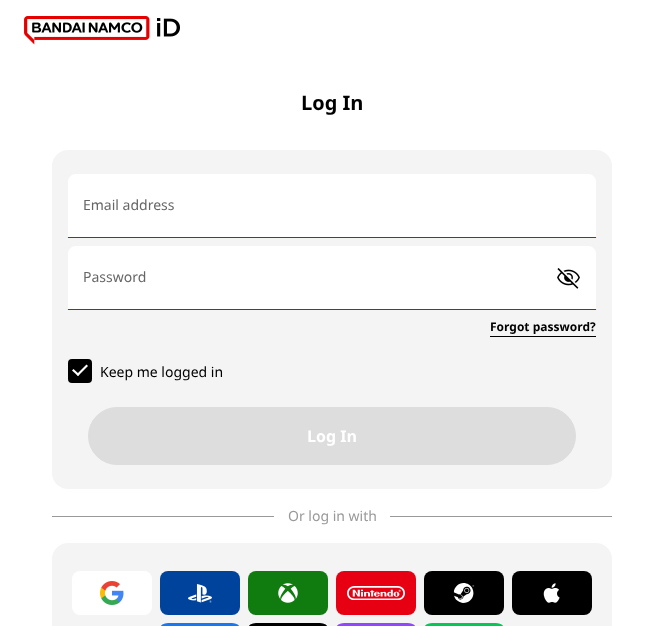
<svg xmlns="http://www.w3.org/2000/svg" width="664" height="626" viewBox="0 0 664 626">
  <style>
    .t1 { font: bold 20px Noto Sans; fill: #000; }
    .t2 { font: 14px Noto Sans; fill: #666; }
    .t3 { font: bold 12px Noto Sans; fill: #000; }
    .t4 { font: 14px Noto Sans; fill: #000; }
    .t5 { font: bold 16px Noto Sans; fill: #fff; }
    .t6 { font: 14px Noto Sans; fill: #999; }
  </style>
  <rect width="100%" height="100%" fill="#fff"/>
  <image x="24" y="16" width="156" height="29" href="images/1.png"/>
  <text x="301" y="110" class="t1">Log In</text>
  <rect x="52" y="150" width="560" height="339" rx="16" fill="#f4f4f4"/>
  <path d="M76 174H588C592.5 174 596 177.5 596 182V238H68V182C68 177.5 71.5 174 76 174Z" fill="#fff"/>
  <rect x="68" y="237" width="528" height="1" fill="#e60000"/>
  <text x="83" y="210" class="t2">Email address</text>
  <path d="M76 246H588C592.5 246 596 249.5 596 254V310H68V254C68 249.5 71.5 246 76 246Z" fill="#fff"/>
  <rect x="68" y="309" width="528" height="1" fill="#e60000"/>
  <text x="83" y="282" class="t2">Password</text>
  <image x="557" y="268" width="23" height="21" href="images/2.png"/>
  <rect x="490" y="336" width="106" height="1" fill="#000"/>
  <text x="490" y="331" class="t3">Forgot password?</text>
  <rect x="69" y="360" width="22" height="22" rx="3" fill="#000" stroke="#000" stroke-width="2"/>
  <path d="M86.5 364.5L88 366L78 376L76.5 374.5Z" fill="#fff"/>
  <path d="M73.5 369L79.5 374.5L78 376L72 370.5Z" fill="#fff"/>
  <text x="100" y="377" class="t4">Keep me logged in</text>
  <rect x="88.5" y="407.5" width="487" height="57" rx="28.5" fill="#ddd" stroke="#ddd"/>
  <text x="307" y="442" class="t5">Log In</text>
  <rect x="52" y="516" width="222" height="1" fill="#999"/>
  <text x="288" y="521" class="t6">Or log in with</text>
  <rect x="390" y="516" width="222" height="1" fill="#999"/>
  <rect x="52" y="543" width="560" height="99" rx="16" fill="#f4f4f4"/>
  <rect x="72" y="571" width="80" height="44" rx="8" fill="#fff"/>
  <image x="100" y="581" width="24" height="24" href="images/3.png"/>
  <rect x="160" y="571" width="80" height="44" rx="8" fill="#00439c"/>
  <image x="188" y="584" width="24" height="19" href="images/4.png"/>
  <rect x="248" y="571" width="80" height="44" rx="8" fill="#107c10"/>
  <image x="278" y="583" width="20" height="20" href="images/5.png"/>
  <rect x="336" y="571" width="80" height="44" rx="8" fill="#e60012"/>
  <image x="347" y="586" width="58" height="14" href="images/6.png"/>
  <rect x="424" y="571" width="80" height="44" rx="8" fill="#000"/>
  <image x="453" y="583" width="22" height="20" href="images/7.png"/>
  <rect x="512" y="571" width="80" height="44" rx="8" fill="#000"/>
  <image x="543" y="583" width="17" height="20" href="images/8.png"/>
  <rect x="160" y="623" width="80" height="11" rx="8" fill="#1877f2"/>
  <rect x="248" y="623" width="80" height="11" rx="8" fill="#000"/>
  <rect x="336" y="623" width="80" height="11" rx="8" fill="#9146ff"/>
  <rect x="424" y="623" width="80" height="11" rx="8" fill="#06c755"/>
</svg>
